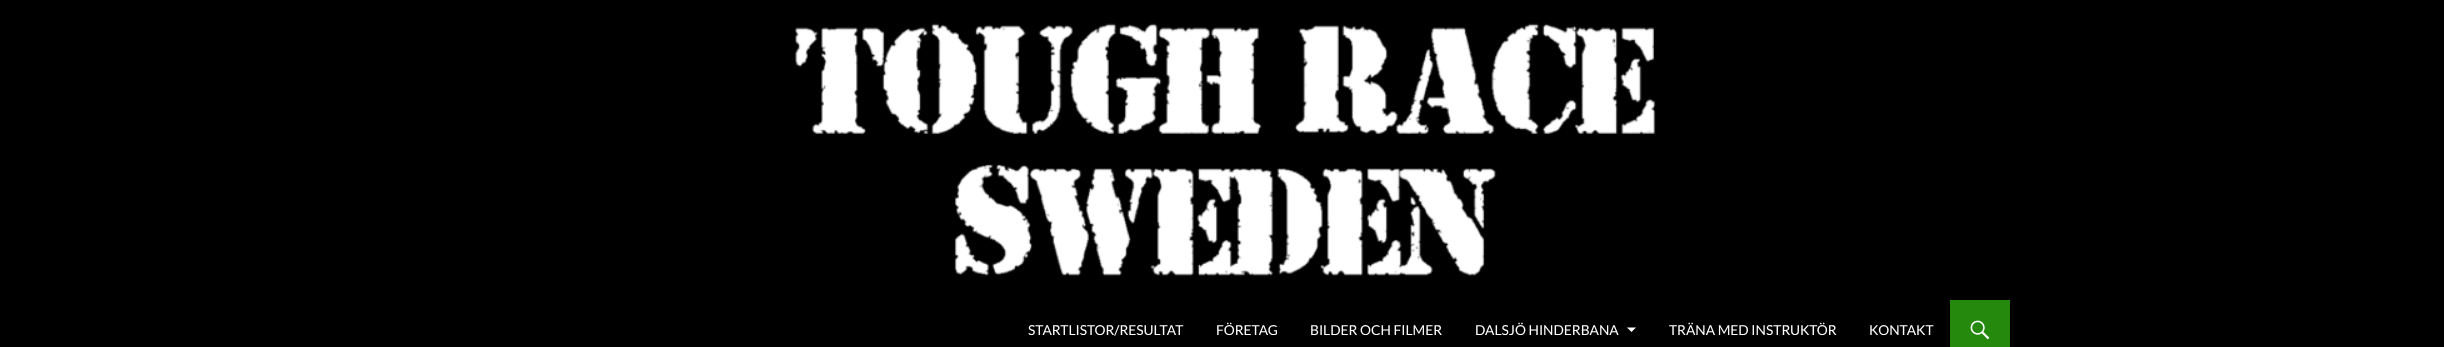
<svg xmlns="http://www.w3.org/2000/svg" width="2444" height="347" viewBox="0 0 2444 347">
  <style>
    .t1 { font: 13.75px Lato; fill: #fff; }
  </style>
  <rect width="100%" height="100%" fill="#000"/>
  <image x="435" y="0" width="1575" height="300" href="images/1.png"/>
  <text x="1028" y="335" class="t1">STARTLISTOR/RESULTAT</text>
  <text x="1216" y="335" class="t1">FÖRETAG</text>
  <text x="1310" y="335" class="t1">BILDER OCH FILMER</text>
  <text x="1475" y="335" class="t1">DALSJÖ HINDERBANA</text>
  <path d="M1627 327.5L1631.5 332L1636 327.5Z" fill="#fff"/>
  <text x="1669" y="335" class="t1">TRÄNA MED INSTRUKTÖR</text>
  <text x="1869" y="335" class="t1">KONTAKT</text>
  <rect x="1950" y="300" width="60" height="47" fill="#24890d"/>
  <image x="1970" y="320" width="20" height="20" href="images/2.png"/>
</svg>
